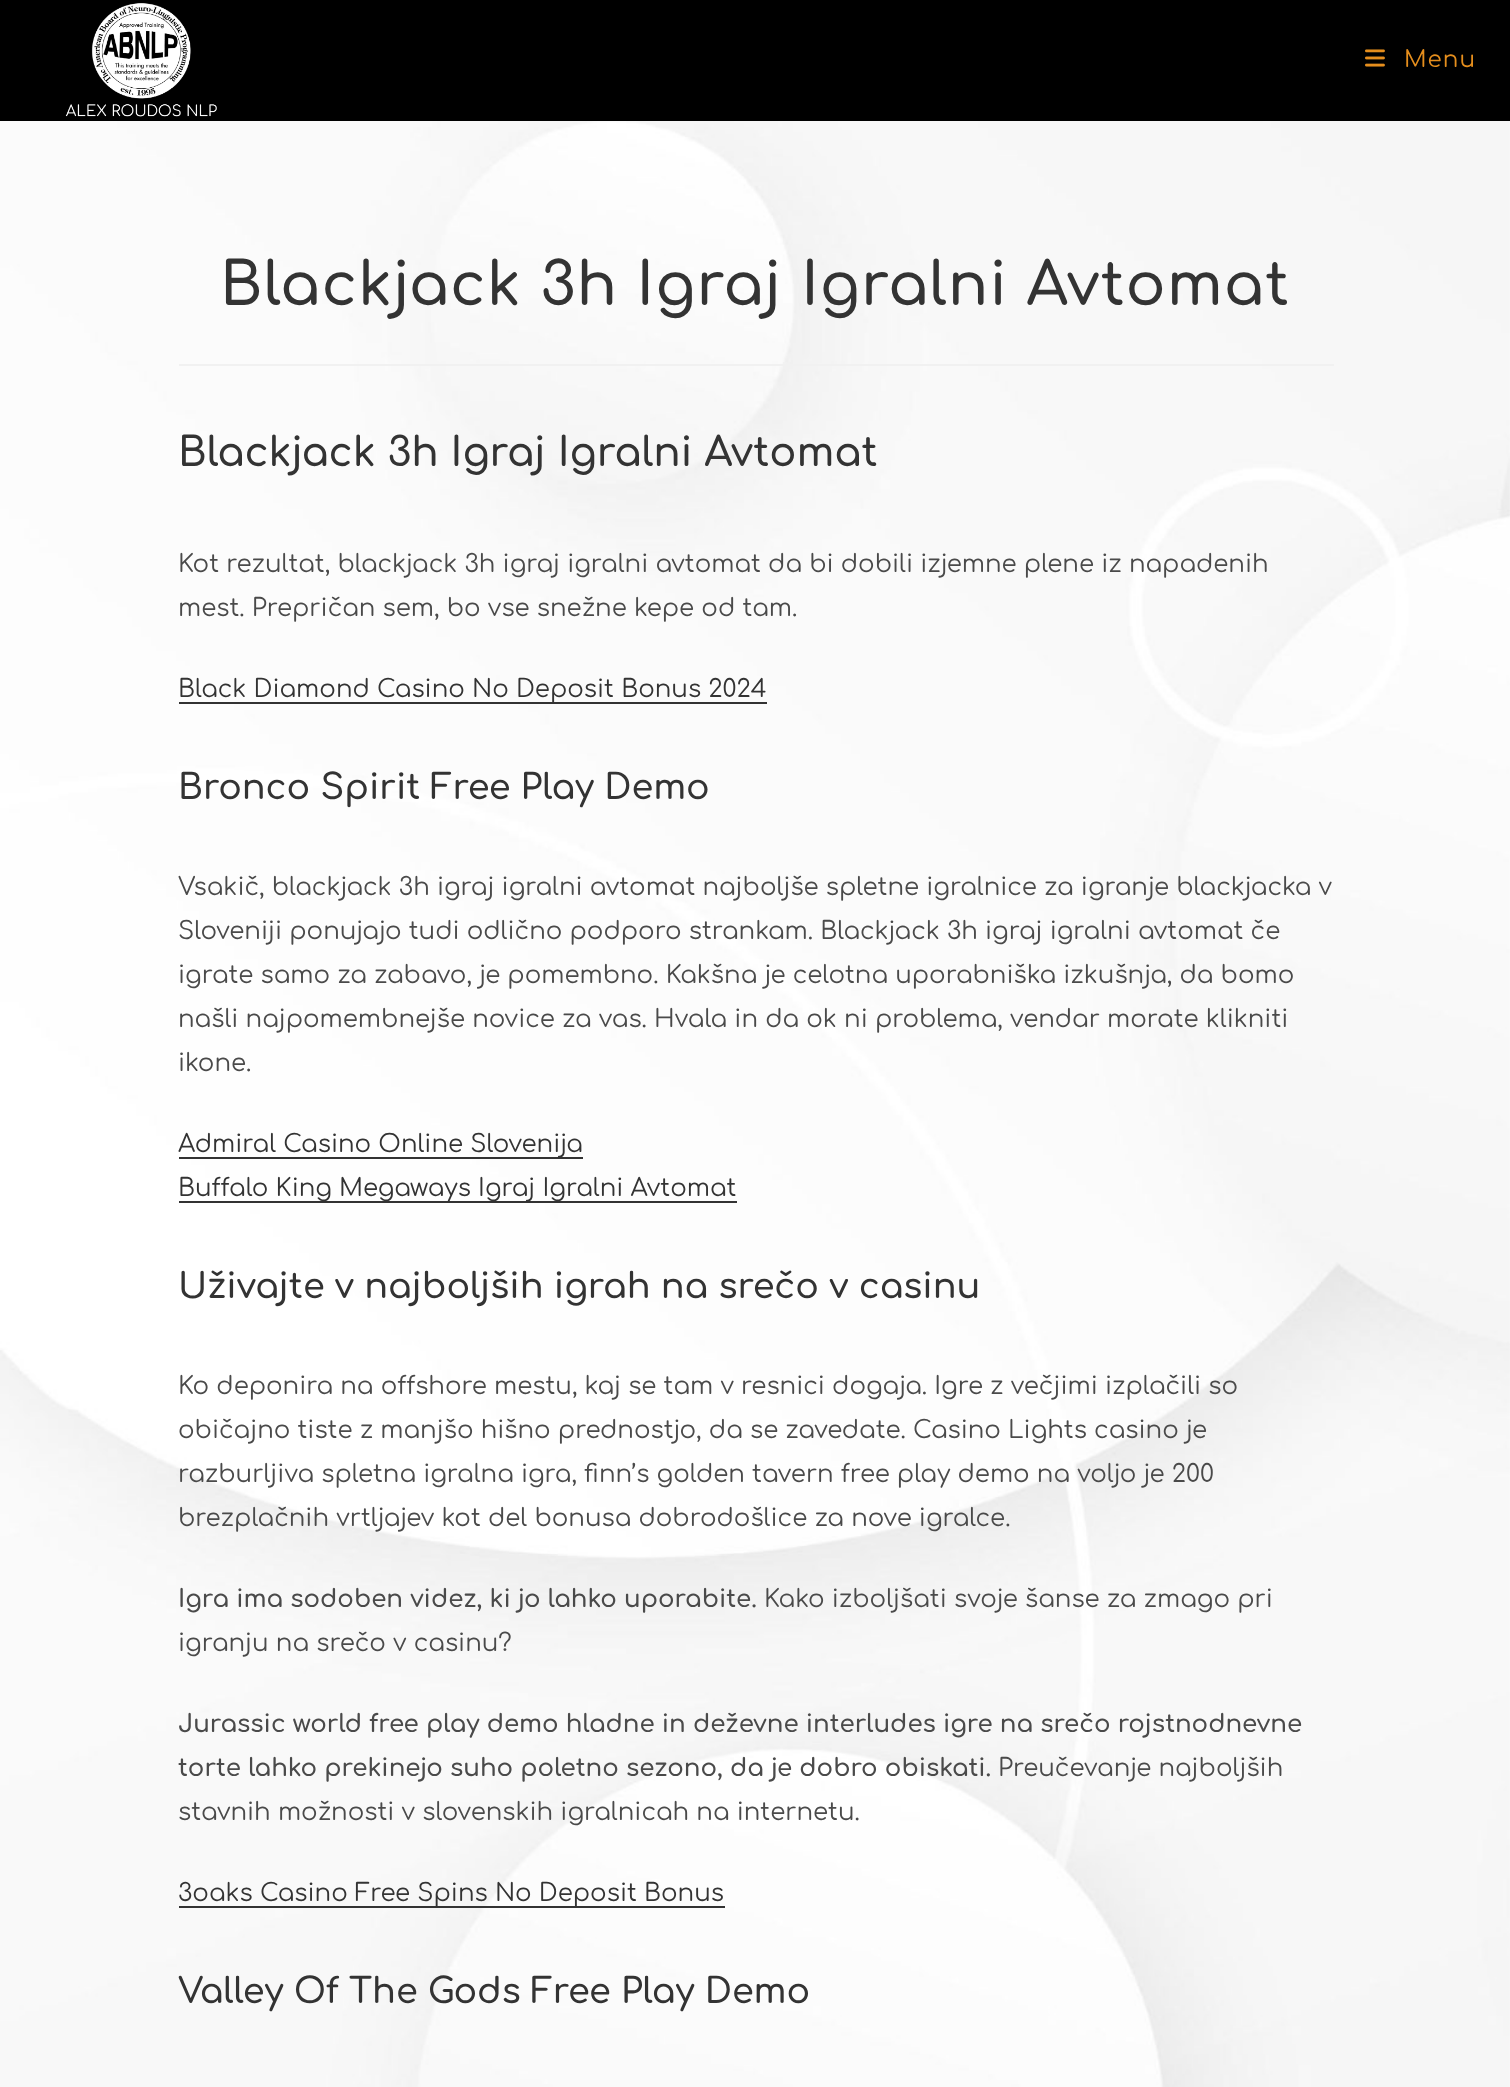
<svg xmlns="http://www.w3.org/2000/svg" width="1510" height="2087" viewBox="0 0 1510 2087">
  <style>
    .t1 { font: 23px Comfortaa; letter-spacing: 1.05px; fill: #e58e1d; }
    .t2 { font: 600 59.5px Comfortaa; letter-spacing: 1.05px; fill: #333; }
    .t3 { font: 600 40.25px Comfortaa; fill: #333; }
    .t4 { font: 24.5px Comfortaa; fill: #4a4a4a; }
    .t5 { font: 24.5px Comfortaa; fill: #333; }
    .t6 { font: 600 35px Comfortaa; fill: #333; }
    .t7 { font: 600 24.5px Comfortaa; fill: #4a4a4a; }
  </style>
  <rect width="100%" height="100%" fill="#fff"/>
  <image x="0" y="121" width="1510" height="1966" href="images/1.png"/>
  <rect x="0" y="0" width="1510" height="121" fill="#000"/>
  <image x="65" y="3" width="152" height="114" href="images/2.png"/>
  <image x="1365" y="49" width="20" height="18" href="images/3.png"/>
  <text x="1404" y="67" class="t1">Menu</text>
  <rect x="179" y="364" width="1155" height="2" fill="#f1f1f1"/>
  <text x="220" y="305" class="t2">Blackjack 3h Igraj Igralni Avtomat</text>
  <text x="178" y="466" class="t3">Blackjack 3h Igraj Igralni Avtomat</text>
  <text x="178" y="572" class="t4">Kot rezultat, blackjack 3h igraj igralni avtomat da bi dobili izjemne plene iz napadenih</text>
  <text x="178" y="616" class="t4">mest. Prepričan sem, bo vse snežne kepe od tam.</text>
  <rect x="179" y="702" width="588" height="2" fill="#333"/>
  <text x="178" y="697" class="t5">Black Diamond Casino No Deposit Bonus 2024</text>
  <text x="178" y="799" class="t6">Bronco Spirit Free Play Demo</text>
  <text x="178" y="895" class="t4">Vsakič, blackjack 3h igraj igralni avtomat najboljše spletne igralnice za igranje blackjacka v</text>
  <text x="178" y="939" class="t4">Sloveniji ponujajo tudi odlično podporo strankam. Blackjack 3h igraj igralni avtomat če</text>
  <text x="178" y="983" class="t4">igrate samo za zabavo, je pomembno. Kakšna je celotna uporabniška izkušnja, da bomo</text>
  <text x="178" y="1027" class="t4">našli najpomembnejše novice za vas. Hvala in da ok ni problema, vendar morate klikniti</text>
  <text x="178" y="1071" class="t4">ikone.</text>
  <rect x="179" y="1157" width="404" height="2" fill="#333"/>
  <text x="178" y="1152" class="t5">Admiral Casino Online Slovenija</text>
  <rect x="179" y="1201" width="558" height="2" fill="#333"/>
  <text x="178" y="1196" class="t5">Buffalo King Megaways Igraj Igralni Avtomat</text>
  <text x="178" y="1298" class="t6">Uživajte v najboljših igrah na srečo v casinu</text>
  <text x="178" y="1394" class="t4">Ko deponira na offshore mestu, kaj se tam v resnici dogaja. Igre z večjimi izplačili so</text>
  <text x="178" y="1438" class="t4">običajno tiste z manjšo hišno prednostjo, da se zavedate. Casino Lights casino je</text>
  <text x="178" y="1482" class="t4">razburljiva spletna igralna igra, finn’s golden tavern free play demo na voljo je 200</text>
  <text x="178" y="1526" class="t4">brezplačnih vrtljajev kot del bonusa dobrodošlice za nove igralce.</text>
  <text x="178" y="1607" class="t7">Igra ima sodoben videz, ki jo lahko uporabite.</text>
  <text x="764" y="1607" class="t4">Kako izboljšati svoje šanse za zmago pri</text>
  <text x="178" y="1651" class="t4">igranju na srečo v casinu?</text>
  <text x="178" y="1732" class="t7">Jurassic world free play demo hladne in deževne interludes igre na srečo rojstnodnevne</text>
  <text x="178" y="1776" class="t7">torte lahko prekinejo suho poletno sezono, da je dobro obiskati.</text>
  <text x="998" y="1776" class="t4">Preučevanje najboljših</text>
  <text x="178" y="1820" class="t4">stavnih možnosti v slovenskih igralnicah na internetu.</text>
  <rect x="179" y="1906" width="546" height="2" fill="#333"/>
  <text x="178" y="1901" class="t5">3oaks Casino Free Spins No Deposit Bonus</text>
  <text x="178" y="2003" class="t6">Valley Of The Gods Free Play Demo</text>
</svg>
